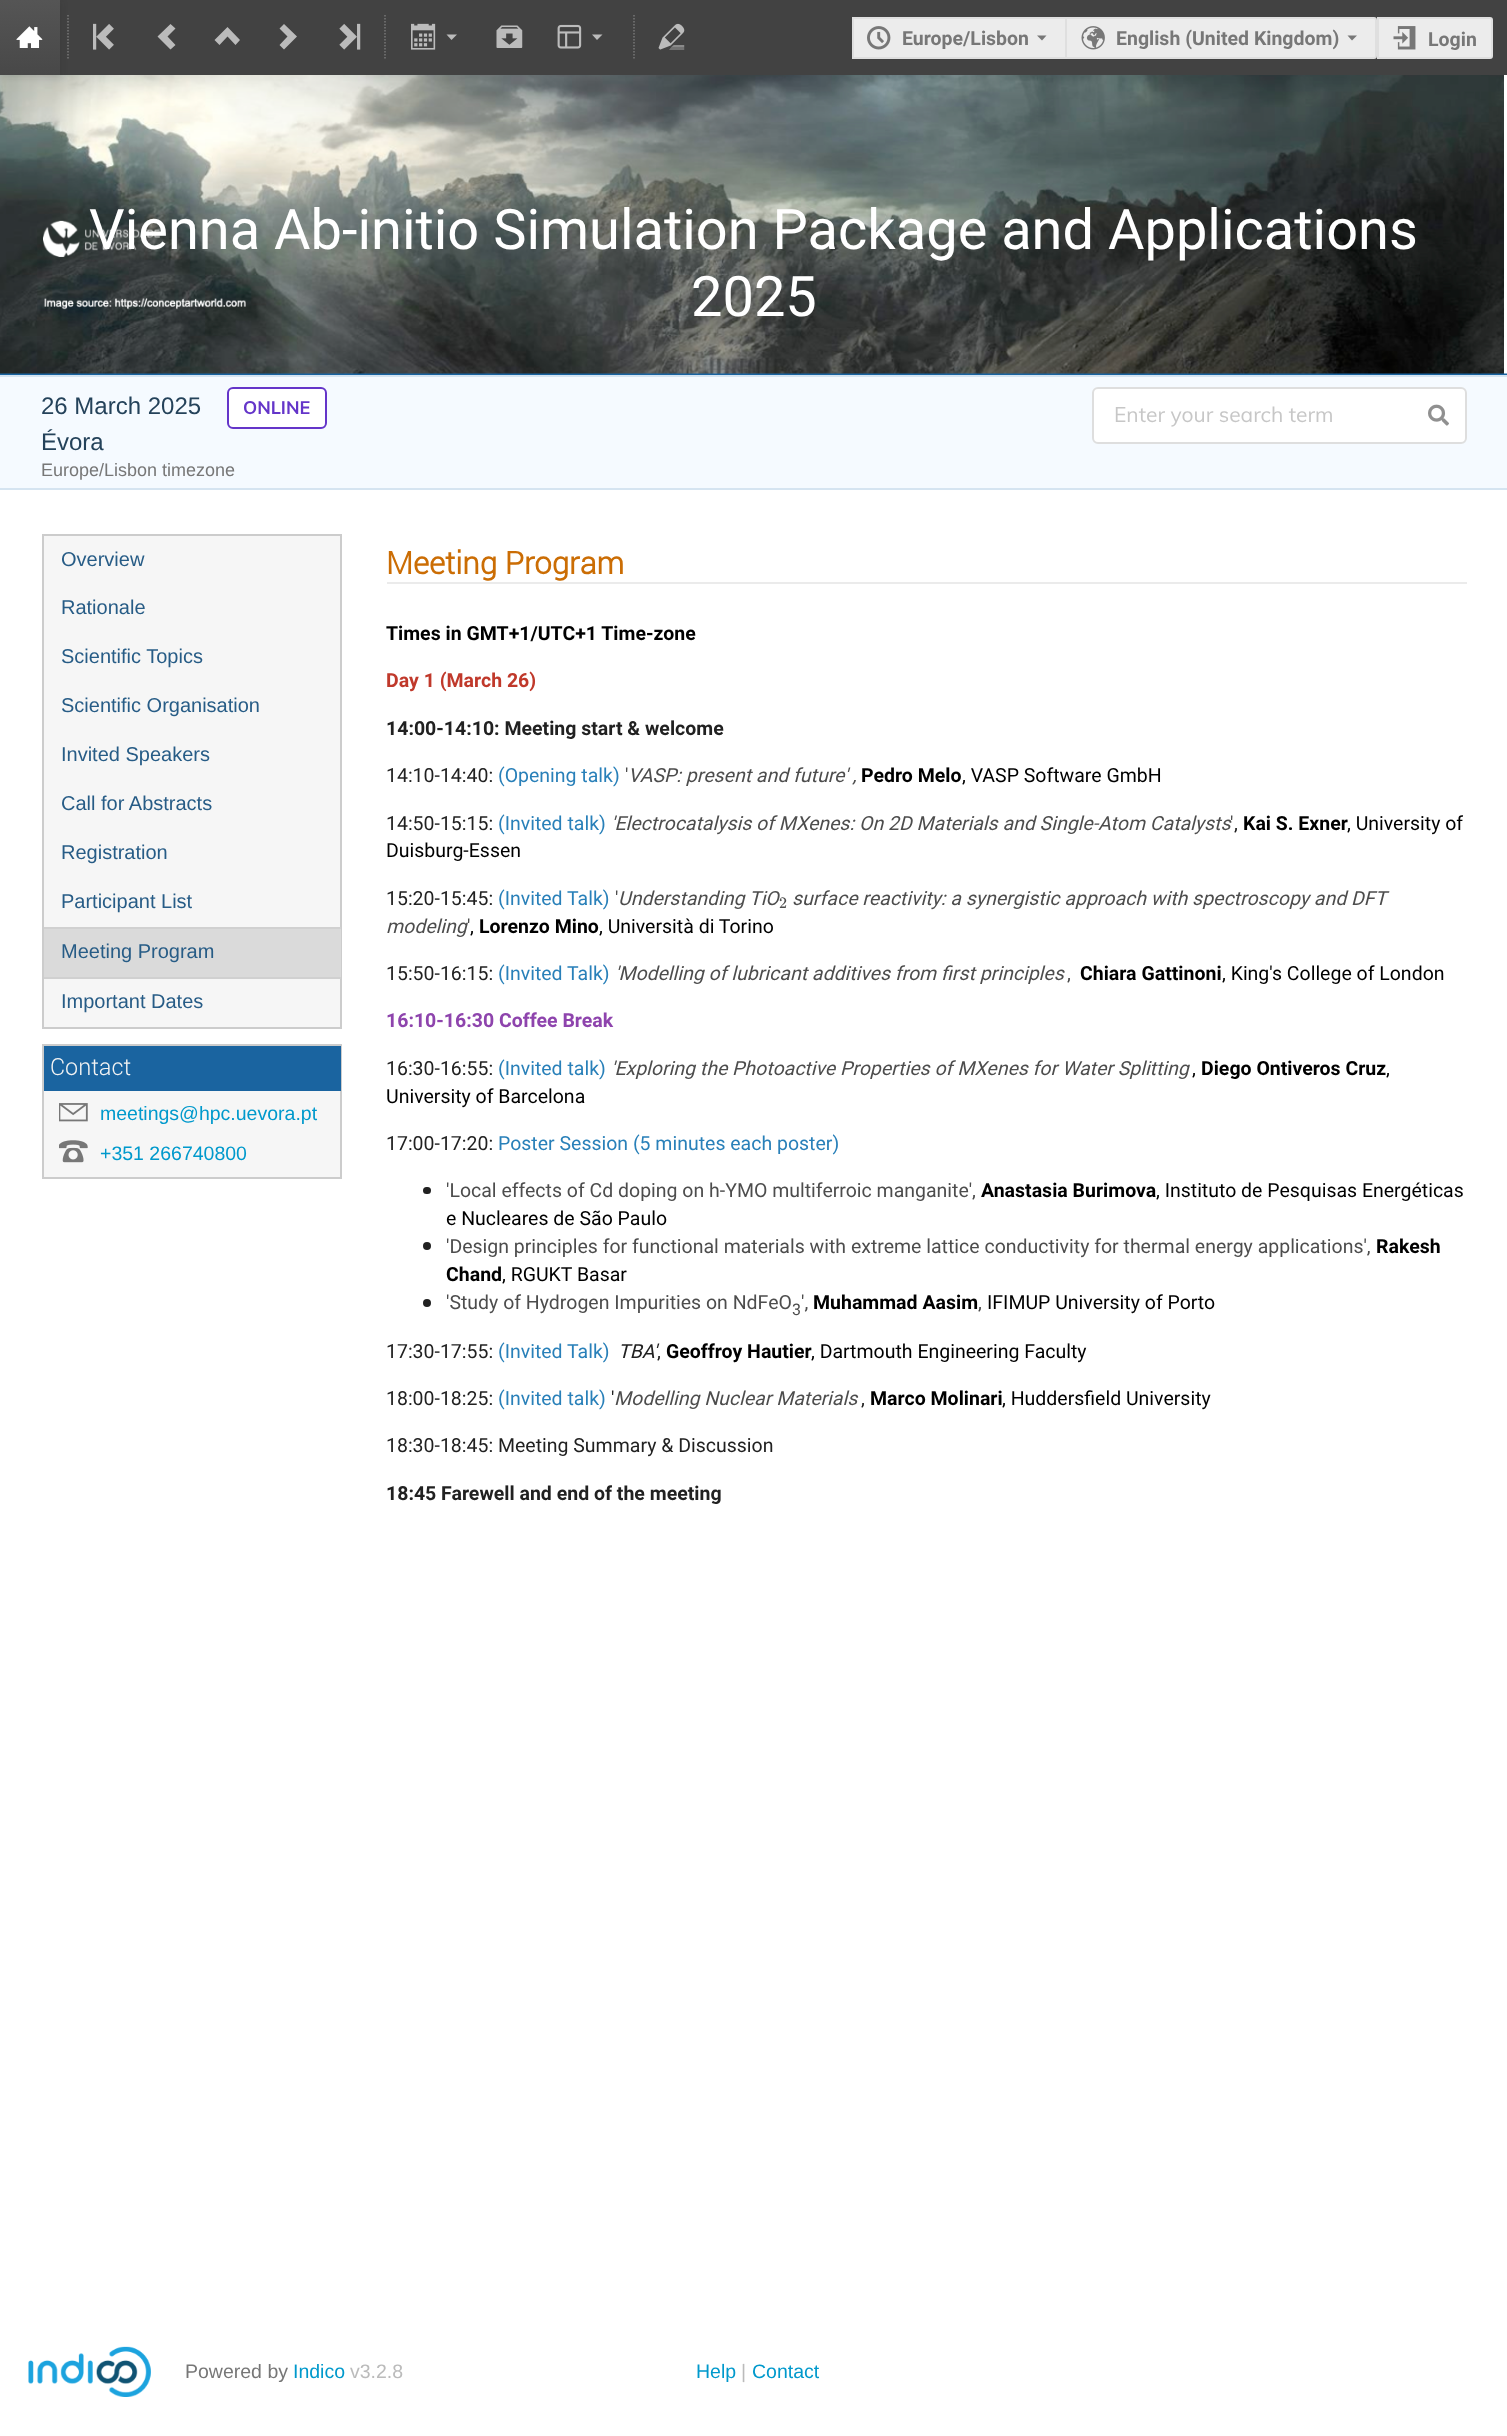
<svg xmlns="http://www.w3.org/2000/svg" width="1507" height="2436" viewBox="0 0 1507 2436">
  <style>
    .t1 { font: bold 19.5px Roboto; fill: #777; }
    .t2 { font: 56px Roboto; fill: #fff; }
    .t3 { font: 24px Liberation Sans; fill: #24425a; }
    .t4 { font: bold 18px Mulish; fill: #6435c9; }
    .t5 { font: 18px Liberation Sans; fill: #777; }
    .t6 { font: 21px Mulish; fill: #c7c7c7; }
    .t7 { font: 20px 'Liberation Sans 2'; fill: #275c86; }
    .t8 { font: 300 23.5px Roboto; fill: #f3f3f3; }
    .t9 { font: 19.5px Liberation Sans; fill: #09c; }
    .t10 { font: bold 31.25px 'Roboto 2'; fill: #cb6d04; }
    .t11 { font: bold 19.5px Roboto; fill: #000; }
    .t12 { font: bold 19.5px Roboto; fill: #c0392b; }
    .t13 { font: bold 19.5px Roboto; fill: #212121; }
    .t14 { font: 19.5px Roboto; fill: #212121; }
    .t15 { font: 19.5px Roboto; fill: #2980b9; }
    .t16 { font: 19.5px Roboto; fill: #4d4d4d; }
    .t17 { font: italic 19.5px Roboto; fill: #4d4d4d; }
    .t18 { font: 19.5px Roboto; fill: #000; }
    .t19 { font: 16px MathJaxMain; fill: #4d4d4d; }
    .t20 { font: bold 19.5px Roboto; fill: #8e44ad; }
    .t21 { font: 16px Roboto; fill: #4d4d4d; }
    .t22 { font: italic 19.5px Roboto; fill: #212121; }
    .t23 { font: 19.5px Liberation Sans; fill: #777; }
    .t24 { font: 19.5px Liberation Sans; fill: #bbb; }
  </style>
  <defs>
    <linearGradient id="g1" gradientUnits="userSpaceOnUse" x1="30" y1="0" x2="30" y2="75"><stop offset="0" stop-color="#555"/><stop offset="1" stop-color="#484848"/></linearGradient>
  </defs>
  <rect width="100%" height="100%" fill="#fff"/>
  <rect x="60" y="0" width="1447" height="75" fill="#424242"/>
  <rect x="0" y="373" width="1507" height="2" fill="#1a64a0"/>
  <image x="0" y="75" width="1507" height="299" href="images/11.png"/>
  <rect x="2" y="2" width="60" height="75" fill="#1414141a" filter="blur(3px)"/>
  <rect x="0" y="0" width="60" height="75" fill="url(#g1)"/>
  <image x="16" y="26" width="27" height="22" href="images/1.png"/>
  <path d="M68 15V60" fill="none" stroke="#777" stroke-width="1.5" stroke-dasharray="1.5 1.5"/>
  <image x="93" y="23" width="21" height="27" href="images/2.png"/>
  <path d="M170.5 49.5L175.5 45L167.5 36.5L175.5 28.5L170.5 24L157.5 36.5Z" fill="#bbb"/>
  <path d="M214.5 40L219.5 45L227.5 36.5L235.5 45L240 40L227.5 27Z" fill="#bbb"/>
  <path d="M284 24L279.5 28.5L287.5 36.5L279.5 45L284 49.5L297 36.5Z" fill="#bbb"/>
  <image x="339" y="23" width="22" height="27" href="images/3.png"/>
  <path d="M385 15V60" fill="none" stroke="#777" stroke-width="1.5" stroke-dasharray="1.5 1.5"/>
  <image x="411" y="23" width="25" height="27" href="images/4.png"/>
  <path d="M446.5 34.5L451.5 40L457 34.5Z" fill="#bbb"/>
  <image x="496" y="25" width="27" height="23" href="images/5.png"/>
  <image x="557" y="24" width="25" height="25" href="images/6.png"/>
  <path d="M592 34.5L597 40L602.5 34.5Z" fill="#bbb"/>
  <path d="M634 15V60" fill="none" stroke="#777" stroke-width="1.5" stroke-dasharray="1.5 1.5"/>
  <image x="658" y="23" width="27" height="27" href="images/7.png"/>
  <rect x="854" y="19" width="211" height="38" fill="#ececec"/>
  <rect x="852" y="17" width="213" height="2" fill="#dfdfdf"/>
  <rect x="852" y="57" width="213" height="2" fill="#dfdfdf"/>
  <rect x="852" y="17" width="2" height="42" fill="#dfdfdf"/>
  <image x="867" y="26" width="24" height="24" href="images/8.png"/>
  <text x="902" y="45" class="t1">Europe/Lisbon</text>
  <path d="M1037 35.5L1042 40.5L1046.5 35.5Z" fill="#777"/>
  <path d="M1066 18H1374C1375 18 1376 19 1376 20V56C1376 57 1375 58 1374 58H1066Z" fill="#ececec" stroke="#dfdfdf" stroke-width="2"/>
  <image x="1081" y="26" width="24" height="24" href="images/9.png"/>
  <text x="1116" y="45" class="t1">English (United Kingdom)</text>
  <path d="M1347.5 35.5L1352 40.5L1357 35.5Z" fill="#777"/>
  <path d="M1378 18H1490C1491 18 1492 19 1492 20V56C1492 57 1491 58 1490 58H1378Z" fill="#ececec" stroke="#dfdfdf" stroke-width="2"/>
  <image x="1393" y="26" width="23" height="24" href="images/10.png"/>
  <text x="1428" y="46" class="t1">Login</text>
  <text x="89" y="249" class="t2">Vienna Ab-initio Simulation Package and Applications</text>
  <text x="691" y="316" class="t2">2025</text>
  <rect x="0" y="377" width="1507" height="111" fill="#f5faff"/>
  <rect x="0" y="375" width="1507" height="2" fill="#d5e4f1"/>
  <rect x="0" y="488" width="1507" height="2" fill="#d5e4f1"/>
  <text x="41" y="414" class="t3">26 March 2025</text>
  <rect x="228" y="388" width="98" height="40" rx="5" fill="#fff" stroke="#6435c9" stroke-width="2"/>
  <text x="243" y="414" class="t4">ONLINE</text>
  <text x="41" y="450" class="t3">Évora</text>
  <text x="41" y="476" class="t5">Europe/Lisbon timezone</text>
  <rect x="1093" y="388" width="373" height="55" rx="5" fill="#fff" stroke="#dedede" stroke-width="2"/>
  <text x="1114" y="422" class="t6">Enter your search term</text>
  <image x="1428" y="404" width="21" height="22" href="images/12.png"/>
  <rect x="43" y="535" width="298" height="493" fill="#f6f6f6" stroke="#ccc" stroke-width="2"/>
  <text x="61" y="566" class="t7">Overview</text>
  <text x="61" y="614" class="t7">Rationale</text>
  <text x="61" y="663" class="t7">Scientific Topics</text>
  <text x="61" y="712" class="t7">Scientific Organisation</text>
  <text x="61" y="761" class="t7">Invited Speakers</text>
  <text x="61" y="810" class="t7">Call for Abstracts</text>
  <text x="61" y="859" class="t7">Registration</text>
  <text x="61" y="908" class="t7">Participant List</text>
  <rect x="44" y="929" width="297" height="48" fill="#dadada"/>
  <rect x="44" y="927" width="297" height="2" fill="#d0d0d0"/>
  <rect x="44" y="977" width="297" height="2" fill="#d0d0d0"/>
  <text x="61" y="958" class="t7">Meeting Program</text>
  <text x="61" y="1008" class="t7">Important Dates</text>
  <rect x="44" y="1091" width="296" height="86" fill="#f6f6f6"/>
  <rect x="43" y="1045" width="298" height="133" fill="none" stroke="#ccc" stroke-width="2"/>
  <rect x="44" y="1046" width="297" height="45" fill="#1a64a0"/>
  <text x="50" y="1075" class="t8">Contact</text>
  <image x="59" y="1103" width="29" height="19" href="images/13.png"/>
  <text x="100" y="1120" class="t9">meetings@hpc.uevora.pt</text>
  <image x="59" y="1140" width="29" height="23" href="images/14.png"/>
  <text x="100" y="1160" class="t9">+351 266740800</text>
  <rect x="387" y="582" width="1080" height="2" fill="#ebebeb"/>
  <text x="386" y="574" class="t10">Meeting Program</text>
  <text x="386" y="640" class="t11">Times in GMT+1/UTC+1 Time-zone</text>
  <text x="386" y="687" class="t12">Day 1 (March 26)</text>
  <text x="386" y="735" class="t13">14:00-14:10: Meeting start &amp; welcome</text>
  <text x="386" y="782" class="t14">14:10-14:40:</text>
  <text x="498" y="782" class="t15">(Opening talk)</text>
  <text x="625" y="782" class="t16">'</text>
  <text x="628" y="782" class="t17">VASP: present and future' ,</text>
  <text x="861" y="782" class="t11">Pedro Melo</text>
  <text x="962" y="782" class="t18">, VASP Software GmbH</text>
  <text x="386" y="830" class="t14">14:50-15:15:</text>
  <text x="498" y="830" class="t15">(Invited talk)</text>
  <text x="611" y="830" class="t17">'Electrocatalysis of MXenes: On 2D Materials and Single-Atom Catalysts</text>
  <text x="1230" y="830" class="t16">'</text>
  <text x="1234" y="830" class="t14">,</text>
  <text x="1243" y="830" class="t11">Kai S. Exner</text>
  <text x="1347" y="830" class="t18">, University of</text>
  <text x="386" y="857" class="t18">Duisburg-Essen</text>
  <text x="386" y="905" class="t14">15:20-15:45:</text>
  <text x="498" y="905" class="t15">(Invited Talk)</text>
  <text x="618" y="905" class="t17">Understanding TiO</text>
  <text x="779" y="908" class="t19">2</text>
  <text x="792" y="905" class="t17">surface reactivity: a synergistic approach with spectroscopy and DFT</text>
  <text x="386" y="933" class="t17">modeling</text>
  <text x="615" y="905" class="t16">'</text>
  <text x="467" y="933" class="t16">'</text>
  <text x="470" y="933" class="t18">,</text>
  <text x="479" y="933" class="t11">Lorenzo Mino</text>
  <text x="599" y="933" class="t18">, Università di Torino</text>
  <text x="386" y="980" class="t14">15:50-16:15:</text>
  <text x="498" y="980" class="t15">(Invited Talk)</text>
  <text x="615" y="980" class="t17">'Modelling of lubricant additives from first principles</text>
  <text x="1067" y="980" class="t16">,</text>
  <text x="1080" y="980" class="t11">Chiara Gattinoni</text>
  <text x="1222" y="980" class="t18">, King's College of London</text>
  <text x="386" y="1027" class="t20">16:10-16:30 Coffee Break</text>
  <text x="386" y="1075" class="t14">16:30-16:55:</text>
  <text x="498" y="1075" class="t15">(Invited talk)</text>
  <text x="611" y="1075" class="t17">'Exploring the Photoactive Properties of MXenes for Water Splitting</text>
  <text x="1192" y="1075" class="t18">,</text>
  <text x="1201" y="1075" class="t11">Diego Ontiveros Cruz</text>
  <text x="1386" y="1075" class="t18">,</text>
  <text x="386" y="1103" class="t18">University of Barcelona</text>
  <text x="386" y="1150" class="t14">17:00-17:20:</text>
  <text x="498" y="1150" class="t15">Poster Session (5 minutes each poster)</text>
  <rect x="423" y="1187" width="8" height="7" rx="3.5" fill="#212121"/>
  <text x="446" y="1197" class="t16">'Local effects of Cd doping on h-YMO multiferroic manganite',</text>
  <text x="981" y="1197" class="t11">Anastasia Burimova</text>
  <text x="1156" y="1197" class="t18">, Instituto de Pesquisas Energéticas</text>
  <text x="446" y="1225" class="t18">e Nucleares de São Paulo</text>
  <circle cx="427" cy="1246" r="4" fill="#212121"/>
  <text x="446" y="1253" class="t16">'Design principles for functional materials with extreme lattice conductivity for thermal energy applications',</text>
  <text x="1376" y="1253" class="t11">Rakesh</text>
  <text x="446" y="1281" class="t11">Chand</text>
  <text x="502" y="1281" class="t18">, RGUKT Basar</text>
  <circle cx="427" cy="1303" r="4" fill="#212121"/>
  <text x="446" y="1309" class="t16">'Study of Hydrogen Impurities on NdFeO</text>
  <text x="792" y="1315" class="t21">3</text>
  <text x="801" y="1309" class="t16">',</text>
  <text x="813" y="1309" class="t11">Muhammad Aasim</text>
  <text x="978" y="1309" class="t16">,</text>
  <text x="987" y="1309" class="t18">IFIMUP University of Porto</text>
  <text x="386" y="1358" class="t14">17:30-17:55:</text>
  <text x="498" y="1358" class="t15">(Invited Talk)</text>
  <text x="618" y="1358" class="t22">TBA'</text>
  <text x="666" y="1358" class="t11">Geoffroy Hautier</text>
  <text x="811" y="1358" class="t18">, Dartmouth Engineering Faculty</text>
  <text x="657" y="1358" class="t14">,</text>
  <text x="386" y="1405" class="t14">18:00-18:25:</text>
  <text x="498" y="1405" class="t15">(Invited talk)</text>
  <text x="611" y="1405" class="t14">'</text>
  <text x="614" y="1405" class="t17">Modelling Nuclear Materials</text>
  <text x="861" y="1405" class="t14">,</text>
  <text x="870" y="1405" class="t11">Marco Molinari</text>
  <text x="1002" y="1405" class="t18">, Huddersfield University</text>
  <text x="386" y="1452" class="t14">18:30-18:45: Meeting Summary &amp; Discussion</text>
  <text x="386" y="1500" class="t13">18:45 Farewell and end of the meeting</text>
  <image x="28" y="2346" width="123" height="51" href="images/15.png"/>
  <text x="185" y="2378" class="t23">Powered by</text>
  <text x="293" y="2378" class="t9">Indico</text>
  <text x="350" y="2378" class="t24">v3.2.8</text>
  <text x="696" y="2378" class="t9">Help</text>
  <text x="741" y="2378" class="t24">|</text>
  <text x="752" y="2378" class="t9">Contact</text>
</svg>
